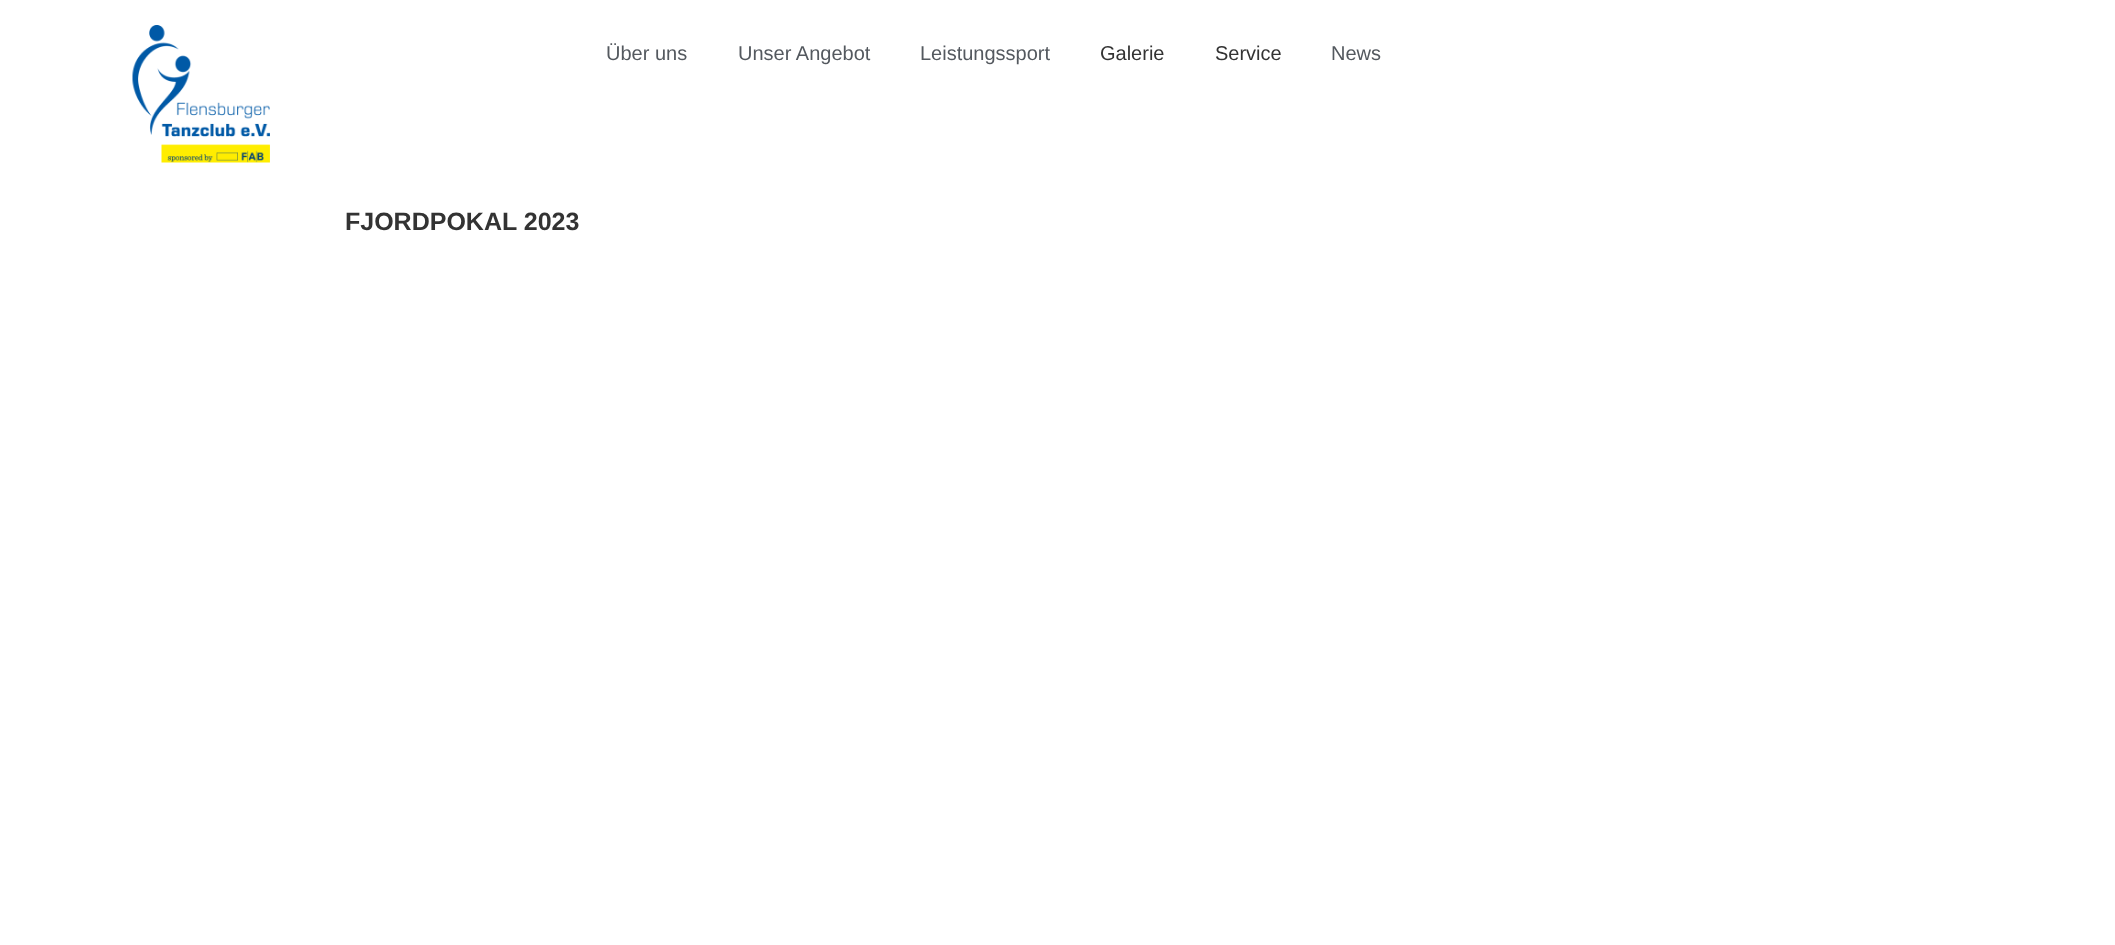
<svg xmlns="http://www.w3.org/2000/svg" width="2115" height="945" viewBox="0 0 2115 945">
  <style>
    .t1 { font: 20px Liberation Sans; fill: #54595f; }
    .t2 { font: 20px Liberation Sans; fill: #333; }
    .t3 { font: bold 25px Liberation Sans; fill: #333; }
  </style>
  <rect width="100%" height="100%" fill="#fff"/>
  <image x="132" y="25" width="138" height="138" href="images/1.png"/>
  <text x="606" y="60" class="t1">Über uns</text>
  <text x="738" y="60" class="t1">Unser Angebot</text>
  <text x="920" y="60" class="t1">Leistungssport</text>
  <text x="1100" y="60" class="t2">Galerie</text>
  <text x="1215" y="60" class="t2">Service</text>
  <text x="1331" y="60" class="t1">News</text>
  <text x="345" y="230" class="t3">FJORDPOKAL 2023</text>
</svg>
